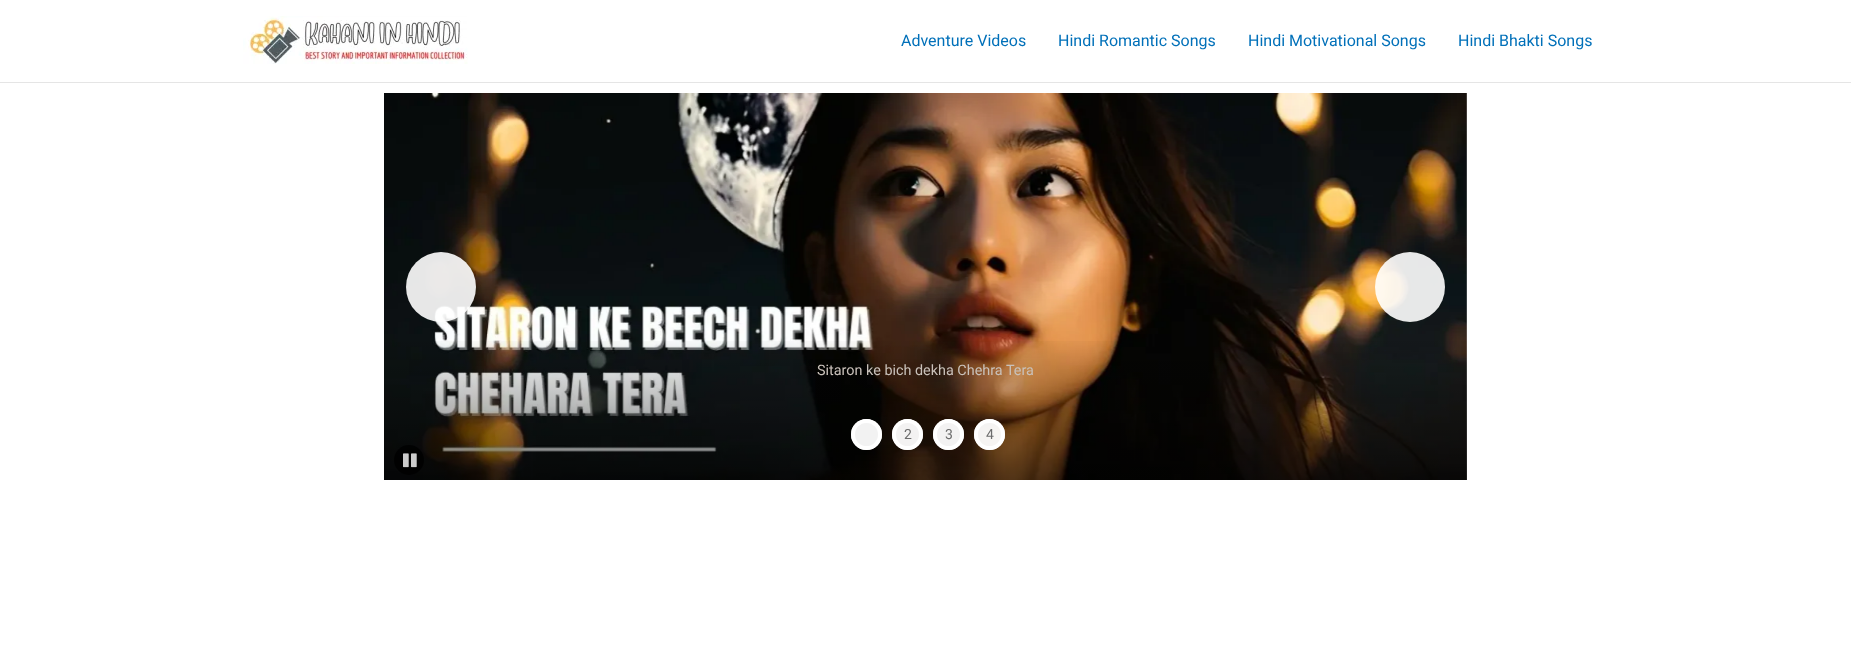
<svg xmlns="http://www.w3.org/2000/svg" width="1851" height="670" viewBox="0 0 1851 670">
  <style>
    .t1 { font: 16px Roboto; fill: #0170b9; }
    .t2 { font: 14.4px Roboto; fill: #c9c1ba; }
    .t3 { font: 14px Roboto; fill: #6c6c6c; }
  </style>
  <defs>
    <linearGradient id="g1" gradientUnits="userSpaceOnUse" x1="926" y1="335" x2="926" y2="480"><stop offset="0" stop-color="#000" stop-opacity="0"/><stop offset="1" stop-color="#000" stop-opacity="0.56"/></linearGradient>
  </defs>
  <rect width="100%" height="100%" fill="#fff"/>
  <rect x="0" y="82" width="1851" height="1" fill="#e5e5e5"/>
  <image x="243" y="16" width="225" height="48" href="images/1.png"/>
  <text x="901" y="46" class="t1">Adventure Videos</text>
  <text x="1058" y="46" class="t1">Hindi Romantic Songs</text>
  <text x="1248" y="46" class="t1">Hindi Motivational Songs</text>
  <text x="1458" y="46" class="t1">Hindi Bhakti Songs</text>
  <image x="384" y="93" width="1083" height="387" href="images/2.png"/>
  <circle cx="441" cy="287" r="35" fill="#ffffffe6"/>
  <circle cx="1410" cy="287" r="35" fill="#ffffffe6"/>
  <rect x="384" y="341" width="1083" height="139" fill="url(#g1)"/>
  <text x="817" y="375" class="t2">Sitaron ke bich dekha Chehra Tera</text>
  <circle cx="866.5" cy="434.5" r="15.5" fill="#fffffff2"/>
  <circle cx="866.5" cy="434.5" r="13.5" fill="none" stroke="#fffffff2" stroke-width="4"/>
  <circle cx="907.5" cy="434.5" r="15.5" fill="#fffffff2"/>
  <circle cx="907.5" cy="434.5" r="13.5" fill="none" stroke="#fffffff2" stroke-width="4"/>
  <text x="904" y="439" class="t3">2</text>
  <circle cx="948.5" cy="434.5" r="15.5" fill="#fffffff2"/>
  <circle cx="948.5" cy="434.5" r="13.5" fill="none" stroke="#fffffff2" stroke-width="4"/>
  <text x="945" y="439" class="t3">3</text>
  <circle cx="989.5" cy="434.5" r="15.5" fill="#fffffff2"/>
  <circle cx="989.5" cy="434.5" r="13.5" fill="none" stroke="#fffffff2" stroke-width="4"/>
  <text x="986" y="439" class="t3">4</text>
  <circle cx="409" cy="460" r="15" fill="#000000cc"/>
  <image x="403" y="453" width="14" height="15" href="images/3.png"/>
</svg>
